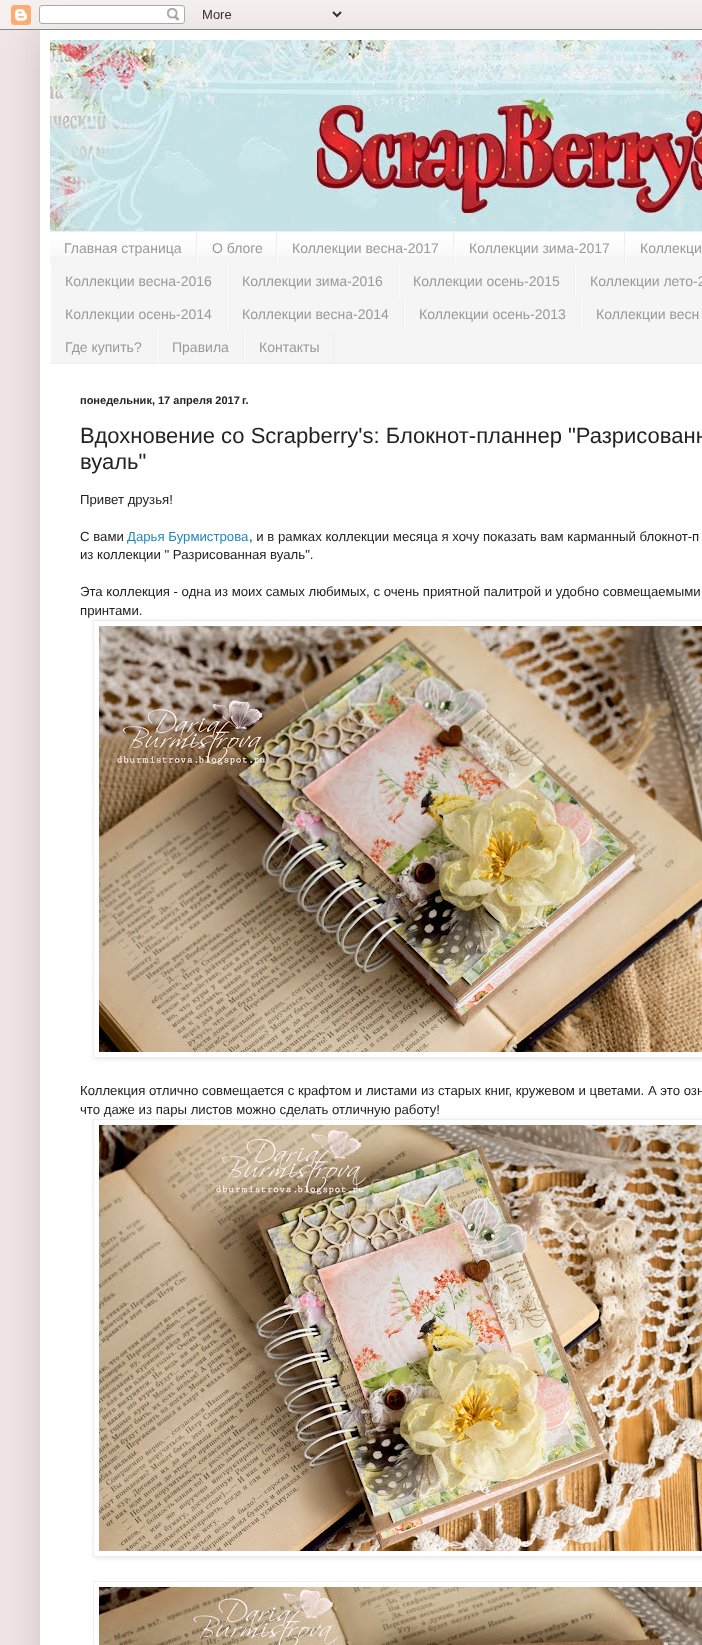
<svg xmlns="http://www.w3.org/2000/svg" width="702" height="1645" viewBox="0 0 702 1645">
  <style>
    .t1 { font: 14px Liberation Sans; fill: #999; }
    .t2 { font: bold 11px Liberation Sans; fill: #222; }
    .t3 { font: 22px Liberation Sans; fill: #222; }
    .t4 { font: 13.2px Liberation Sans; fill: #222; }
    .t5 { font: 13.2px Liberation Sans; fill: #28b; }
  </style>
  <defs>
    <clipPath id="clip1"><path d="M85 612H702V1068H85ZM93 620H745V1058H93Z" clip-rule="evenodd"/></clipPath>
    <clipPath id="clip2"><path d="M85 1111H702V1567H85ZM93 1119H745V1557H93Z" clip-rule="evenodd"/></clipPath>
  </defs>
  <rect width="100%" height="100%" fill="#f0e6e5"/>
  <rect x="40" y="30" width="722" height="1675" fill="#00000026" filter="blur(20px)"/>
  <image x="0" y="0" width="702" height="30" href="images/1.png"/>
  <rect x="40" y="30" width="662" height="1615" fill="#fff"/>
  <image x="50" y="40" width="652" height="191" href="images/2.png"/>
  <rect x="50" y="233" width="652" height="130" fill="#f5f5f5"/>
  <image x="50" y="232" width="652" height="24" href="images/3.png"/>
  <rect x="50" y="231" width="652" height="1" fill="#eee"/>
  <rect x="50" y="363" width="652" height="1" fill="#eee"/>
  <rect x="196" y="232" width="1" height="33" fill="#eee"/>
  <text x="64" y="253" class="t1">Главная страница</text>
  <rect x="276" y="232" width="1" height="33" fill="#eee"/>
  <rect x="197" y="243" width="1" height="22" fill="#fff"/>
  <text x="212" y="253" class="t1">О блоге</text>
  <rect x="453" y="232" width="1" height="33" fill="#eee"/>
  <rect x="277" y="243" width="1" height="22" fill="#fff"/>
  <text x="292" y="253" class="t1">Коллекции весна-2017</text>
  <rect x="624" y="232" width="1" height="33" fill="#eee"/>
  <rect x="454" y="243" width="1" height="22" fill="#fff"/>
  <text x="469" y="253" class="t1">Коллекции зима-2017</text>
  <rect x="625" y="243" width="1" height="22" fill="#fff"/>
  <text x="640" y="253" class="t1">Коллекци</text>
  <rect x="226" y="265" width="1" height="65" fill="#eee"/>
  <rect x="50" y="265" width="1" height="98" fill="#fff"/>
  <text x="65" y="286" class="t1">Коллекции весна-2016</text>
  <rect x="397" y="265" width="1" height="33" fill="#eee"/>
  <rect x="227" y="265" width="1" height="65" fill="#fff"/>
  <text x="242" y="286" class="t1">Коллекции зима-2016</text>
  <rect x="574" y="265" width="1" height="33" fill="#eee"/>
  <rect x="398" y="265" width="1" height="33" fill="#fff"/>
  <text x="413" y="286" class="t1">Коллекции осень-2015</text>
  <rect x="575" y="265" width="1" height="33" fill="#fff"/>
  <text x="590" y="286" class="t1">Коллекции лето-2</text>
  <text x="65" y="319" class="t1">Коллекции осень-2014</text>
  <rect x="403" y="298" width="1" height="32" fill="#eee"/>
  <text x="242" y="319" class="t1">Коллекции весна-2014</text>
  <rect x="580" y="298" width="1" height="32" fill="#eee"/>
  <rect x="404" y="298" width="1" height="32" fill="#fff"/>
  <text x="419" y="319" class="t1">Коллекции осень-2013</text>
  <rect x="581" y="298" width="1" height="32" fill="#fff"/>
  <text x="596" y="319" class="t1">Коллекции весн</text>
  <rect x="156" y="330" width="1" height="33" fill="#eee"/>
  <text x="65" y="352" class="t1">Где купить?</text>
  <rect x="243" y="330" width="1" height="33" fill="#eee"/>
  <rect x="157" y="330" width="1" height="33" fill="#fff"/>
  <text x="172" y="352" class="t1">Правила</text>
  <rect x="333" y="330" width="1" height="33" fill="#eee"/>
  <rect x="244" y="330" width="1" height="33" fill="#fff"/>
  <text x="259" y="352" class="t1">Контакты</text>
  <text x="80" y="404" class="t2">понедельник, 17 апреля 2017 г.</text>
  <text x="80" y="443" class="t3">Вдохновение со Scrapberry's: Блокнот-планнер "Разрисованн</text>
  <text x="80" y="469" class="t3">вуаль"</text>
  <text x="80" y="504" class="t4">Привет друзья!</text>
  <text x="80" y="541" class="t4">С вами</text>
  <text x="127" y="541" class="t5">Дарья Бурмистрова</text>
  <text x="249" y="541" class="t4">, и в рамках коллекции месяца я хочу показать вам карманный блокнот-п</text>
  <text x="80" y="559" class="t4">из коллекции " Разрисованная вуаль".</text>
  <text x="80" y="596" class="t4">Эта коллекция - одна из моих самых любимых, с очень приятной палитрой и удобно совмещаемыми</text>
  <text x="80" y="615" class="t4">принтами.</text>
  <g clip-path="url(#clip1)">
    <rect x="94" y="621" width="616" height="438" fill="#0000001a" filter="blur(2.5px)"/>
  </g>
  <rect x="93.5" y="620.5" width="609" height="437" fill="none" stroke="#eee"/>
  <image x="99" y="626" width="603" height="426" href="images/4.png"/>
  <text x="80" y="1095" class="t4">Коллекция отлично совмещается с крафтом и листами из старых книг, кружевом и цветами. А это озн</text>
  <text x="80" y="1114" class="t4">что даже из пары листов можно сделать отличную работу!</text>
  <g clip-path="url(#clip2)">
    <rect x="94" y="1120" width="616" height="438" fill="#0000001a" filter="blur(2.5px)"/>
  </g>
  <rect x="93.5" y="1119.5" width="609" height="437" fill="none" stroke="#eee"/>
  <image x="99" y="1125" width="603" height="426" href="images/5.png"/>
  <rect x="93.5" y="1581.5" width="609" height="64" fill="none" stroke="#eee"/>
  <image x="99" y="1587" width="603" height="58" href="images/6.png"/>
</svg>
